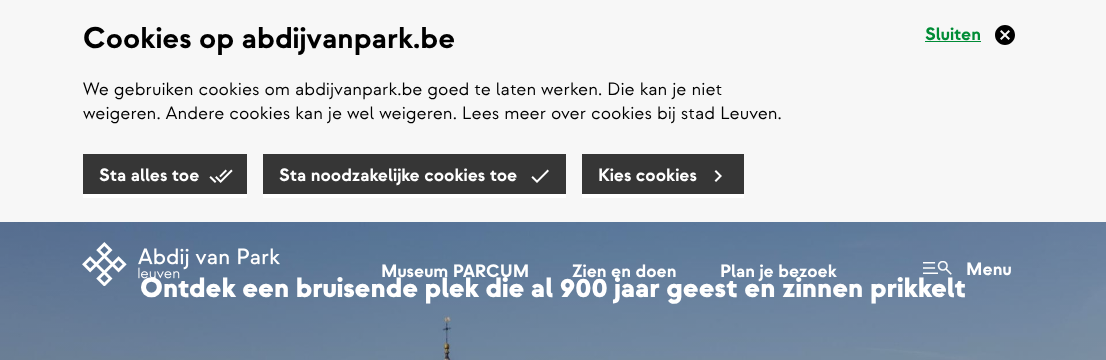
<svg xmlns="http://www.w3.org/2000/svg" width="1106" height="360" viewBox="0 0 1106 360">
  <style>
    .t1 { font: bold 30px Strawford; fill: #000; }
    .t2 { font: 18px Strawford; fill: #000; }
    .t3 { font: bold 18px Strawford; fill: #008c36; }
    .t4 { font: bold 18px Strawford; fill: #fff; }
    .t5 { font: 900 28px Strawford; fill: #fff; }
  </style>
  <rect width="100%" height="100%" fill="#fff"/>
  <rect x="0" y="0" width="1106" height="222" fill="#f7f7f7"/>
  <text x="83" y="48" class="t1">Cookies op abdijvanpark.be</text>
  <text x="83" y="95" class="t2">We gebruiken cookies om abdijvanpark.be goed te laten werken. Die kan je niet</text>
  <text x="83" y="119" class="t2">weigeren. Andere cookies kan je wel weigeren. Lees meer over cookies bij stad Leuven.</text>
  <text x="925" y="40" class="t3">Sluiten</text>
  <rect x="925" y="41" width="56" height="1" fill="#008c36"/>
  <image x="995" y="25" width="20" height="20" href="images/1.png"/>
  <rect x="83" y="154" width="164" height="40" fill="#363636"/>
  <rect x="83" y="194" width="164" height="4" fill="#fff"/>
  <text x="99" y="181" class="t4">Sta alles toe</text>
  <image x="209" y="169" width="24" height="14" href="images/2.png"/>
  <rect x="263" y="154" width="303" height="40" fill="#363636"/>
  <rect x="263" y="194" width="303" height="4" fill="#fff"/>
  <text x="279" y="181" class="t4">Sta noodzakelijke cookies toe</text>
  <image x="531" y="169" width="18" height="14" href="images/3.png"/>
  <rect x="582" y="154" width="162" height="40" fill="#363636"/>
  <rect x="582" y="194" width="162" height="4" fill="#fff"/>
  <text x="598" y="181" class="t4">Kies cookies</text>
  <image x="714" y="170" width="8" height="12" href="images/4.png"/>
  <image x="0" y="222" width="1106" height="138" href="images/7.png"/>
  <text x="140" y="297" class="t5">Ontdek een bruisende plek die al 900 jaar geest en zinnen prikkelt</text>
  <image x="82" y="242" width="198" height="44" href="images/5.png"/>
  <text x="381" y="277" class="t4">Museum PARCUM</text>
  <text x="572" y="277" class="t4">Zien en doen</text>
  <text x="720" y="277" class="t4">Plan je bezoek</text>
  <image x="923" y="261" width="29" height="14" href="images/6.png"/>
  <text x="966" y="275" class="t4">Menu</text>
</svg>
